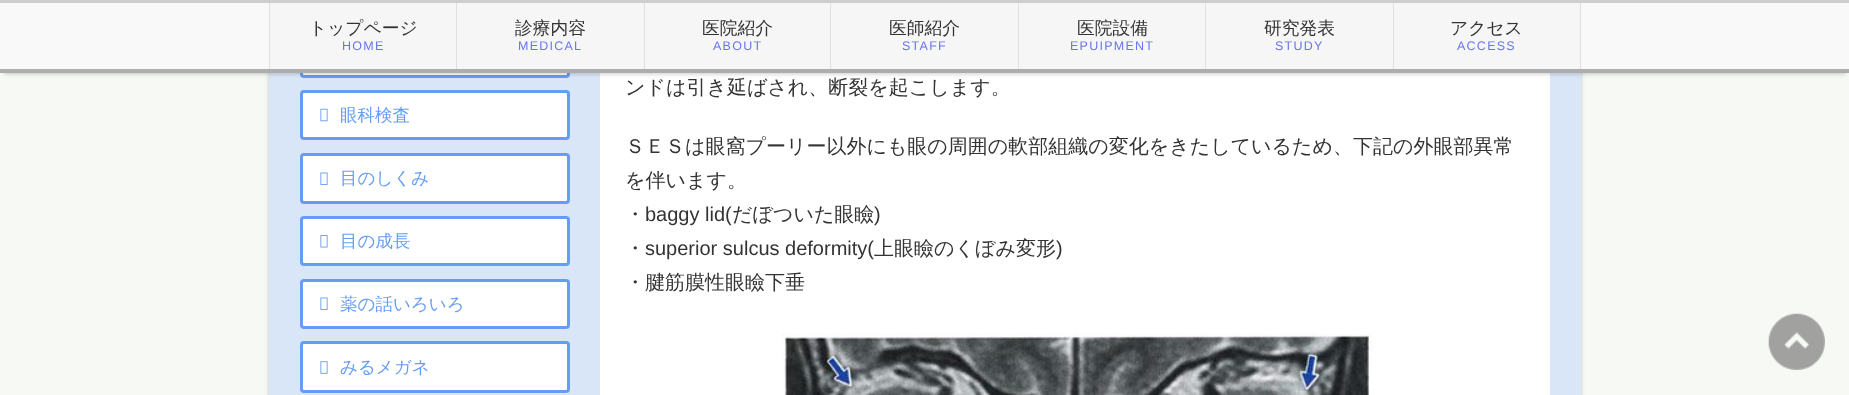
<svg xmlns="http://www.w3.org/2000/svg" width="1849" height="395" viewBox="0 0 1849 395">
  <style>
    .t1 { font: 500 17.75px WenQuanYi Zen Hei; fill: #333; }
    .t2 { font: 12.5px Liberation Sans; letter-spacing: 1.25px; fill: #6a75ed; }
    .t3 { font: 500 17.5px WenQuanYi Zen Hei; fill: #659df2; }
    .t4 { font: 500 20px WenQuanYi Zen Hei; fill: #333; }
    .t5 { font: 20px Liberation Sans; fill: #333; }
  </style>
  <rect width="100%" height="100%" fill="#f7f9f4"/>
  <rect x="269" y="-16" width="1312" height="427" rx="10" fill="#00000033" filter="blur(2px)"/>
  <rect x="269" y="73" width="1312" height="322" fill="#d9e6f7"/>
  <rect x="301.5" y="27.5" width="267" height="49" rx="2.5" fill="#fff" stroke="#659df2" stroke-width="3"/>
  <rect x="600" y="73" width="950" height="322" fill="#fff"/>
  <rect x="4" y="9" width="1842" height="65" fill="#00000033" filter="blur(2px)"/>
  <rect x="0" y="3" width="1849" height="66" fill="#f9f9f9"/>
  <rect x="0" y="0" width="1849" height="3" fill="#cecece"/>
  <rect x="0" y="69" width="1849" height="4" fill="#adadad"/>
  <rect x="269" y="3" width="1" height="66" fill="#e0e0e0"/>
  <rect x="270" y="3" width="374" height="66" fill="#f6f6f6"/>
  <rect x="456" y="3" width="1" height="66" fill="#e0e0e0"/>
  <text x="309" y="34" class="t1">トップページ</text>
  <text x="342" y="50" class="t2">HOME</text>
  <rect x="644" y="3" width="1" height="66" fill="#e0e0e0"/>
  <text x="515" y="34" class="t1">診療内容</text>
  <text x="518" y="50" class="t2">MEDICAL</text>
  <rect x="645" y="3" width="185" height="66" fill="#f6f6f6"/>
  <rect x="830" y="3" width="1" height="66" fill="#e0e0e0"/>
  <text x="702" y="34" class="t1">医院紹介</text>
  <text x="713" y="50" class="t2">ABOUT</text>
  <rect x="831" y="3" width="187" height="66" fill="#f6f6f6"/>
  <rect x="1018" y="3" width="1" height="66" fill="#e0e0e0"/>
  <text x="889" y="34" class="t1">医師紹介</text>
  <text x="902" y="50" class="t2">STAFF</text>
  <rect x="1019" y="3" width="186" height="66" fill="#f6f6f6"/>
  <rect x="1205" y="3" width="1" height="66" fill="#e0e0e0"/>
  <text x="1077" y="34" class="t1">医院設備</text>
  <text x="1070" y="50" class="t2">EPUIPMENT</text>
  <rect x="1206" y="3" width="187" height="66" fill="#f6f6f6"/>
  <rect x="1393" y="3" width="1" height="66" fill="#e0e0e0"/>
  <text x="1264" y="34" class="t1">研究発表</text>
  <text x="1275" y="50" class="t2">STUDY</text>
  <rect x="1394" y="3" width="186" height="66" fill="#f6f6f6"/>
  <rect x="1580" y="3" width="1" height="66" fill="#e0e0e0"/>
  <text x="1450" y="34" class="t1">アクセス</text>
  <text x="1457" y="50" class="t2">ACCESS</text>
  <rect x="301.5" y="91.5" width="267" height="47" rx="2.5" fill="#fff" stroke="#659df2" stroke-width="3"/>
  <image x="320" y="108" width="8" height="14" href="images/1.png"/>
  <text x="340" y="121" class="t3">眼科検査</text>
  <rect x="301.5" y="154.5" width="267" height="48" rx="2.5" fill="#fff" stroke="#659df2" stroke-width="3"/>
  <image x="320" y="172" width="8" height="13" href="images/2.png"/>
  <text x="340" y="184" class="t3">目のしくみ</text>
  <rect x="301.5" y="217.5" width="267" height="47" rx="2.5" fill="#fff" stroke="#659df2" stroke-width="3"/>
  <image x="320" y="235" width="8" height="13" href="images/3.png"/>
  <text x="340" y="247" class="t3">目の成長</text>
  <rect x="301.5" y="280.5" width="267" height="47" rx="2.5" fill="#fff" stroke="#659df2" stroke-width="3"/>
  <image x="320" y="297" width="8" height="13" href="images/2.png"/>
  <text x="340" y="310" class="t3">薬の話いろいろ</text>
  <rect x="301.5" y="342.5" width="267" height="49" rx="2.5" fill="#fff" stroke="#659df2" stroke-width="3"/>
  <image x="320" y="361" width="8" height="13" href="images/4.png"/>
  <text x="340" y="373" class="t3">みるメガネ</text>
  <text x="625" y="94" class="t4">ンドは引き延ばされ、断裂を起こします。</text>
  <text x="625" y="153" class="t4">ＳＥＳは眼窩プーリー以外にも眼の周囲の軟部組織の変化をきたしているため、下記の外眼部異常</text>
  <text x="625" y="187" class="t4">を伴います。</text>
  <text x="625" y="221" class="t4">・</text>
  <text x="645" y="221" class="t5">baggy lid(</text>
  <text x="732" y="221" class="t4">だぼついた眼瞼</text>
  <text x="874" y="221" class="t5">)</text>
  <text x="625" y="255" class="t4">・</text>
  <text x="645" y="255" class="t5">superior sulcus deformity(</text>
  <text x="874" y="255" class="t4">上眼瞼のくぼみ変形</text>
  <text x="1056" y="255" class="t5">)</text>
  <text x="625" y="289" class="t4">・腱筋膜性眼瞼下垂</text>
  <image x="782" y="333" width="591" height="62" href="images/5.png"/>
  <image x="1768" y="313" width="57" height="57" href="images/6.png"/>
</svg>
